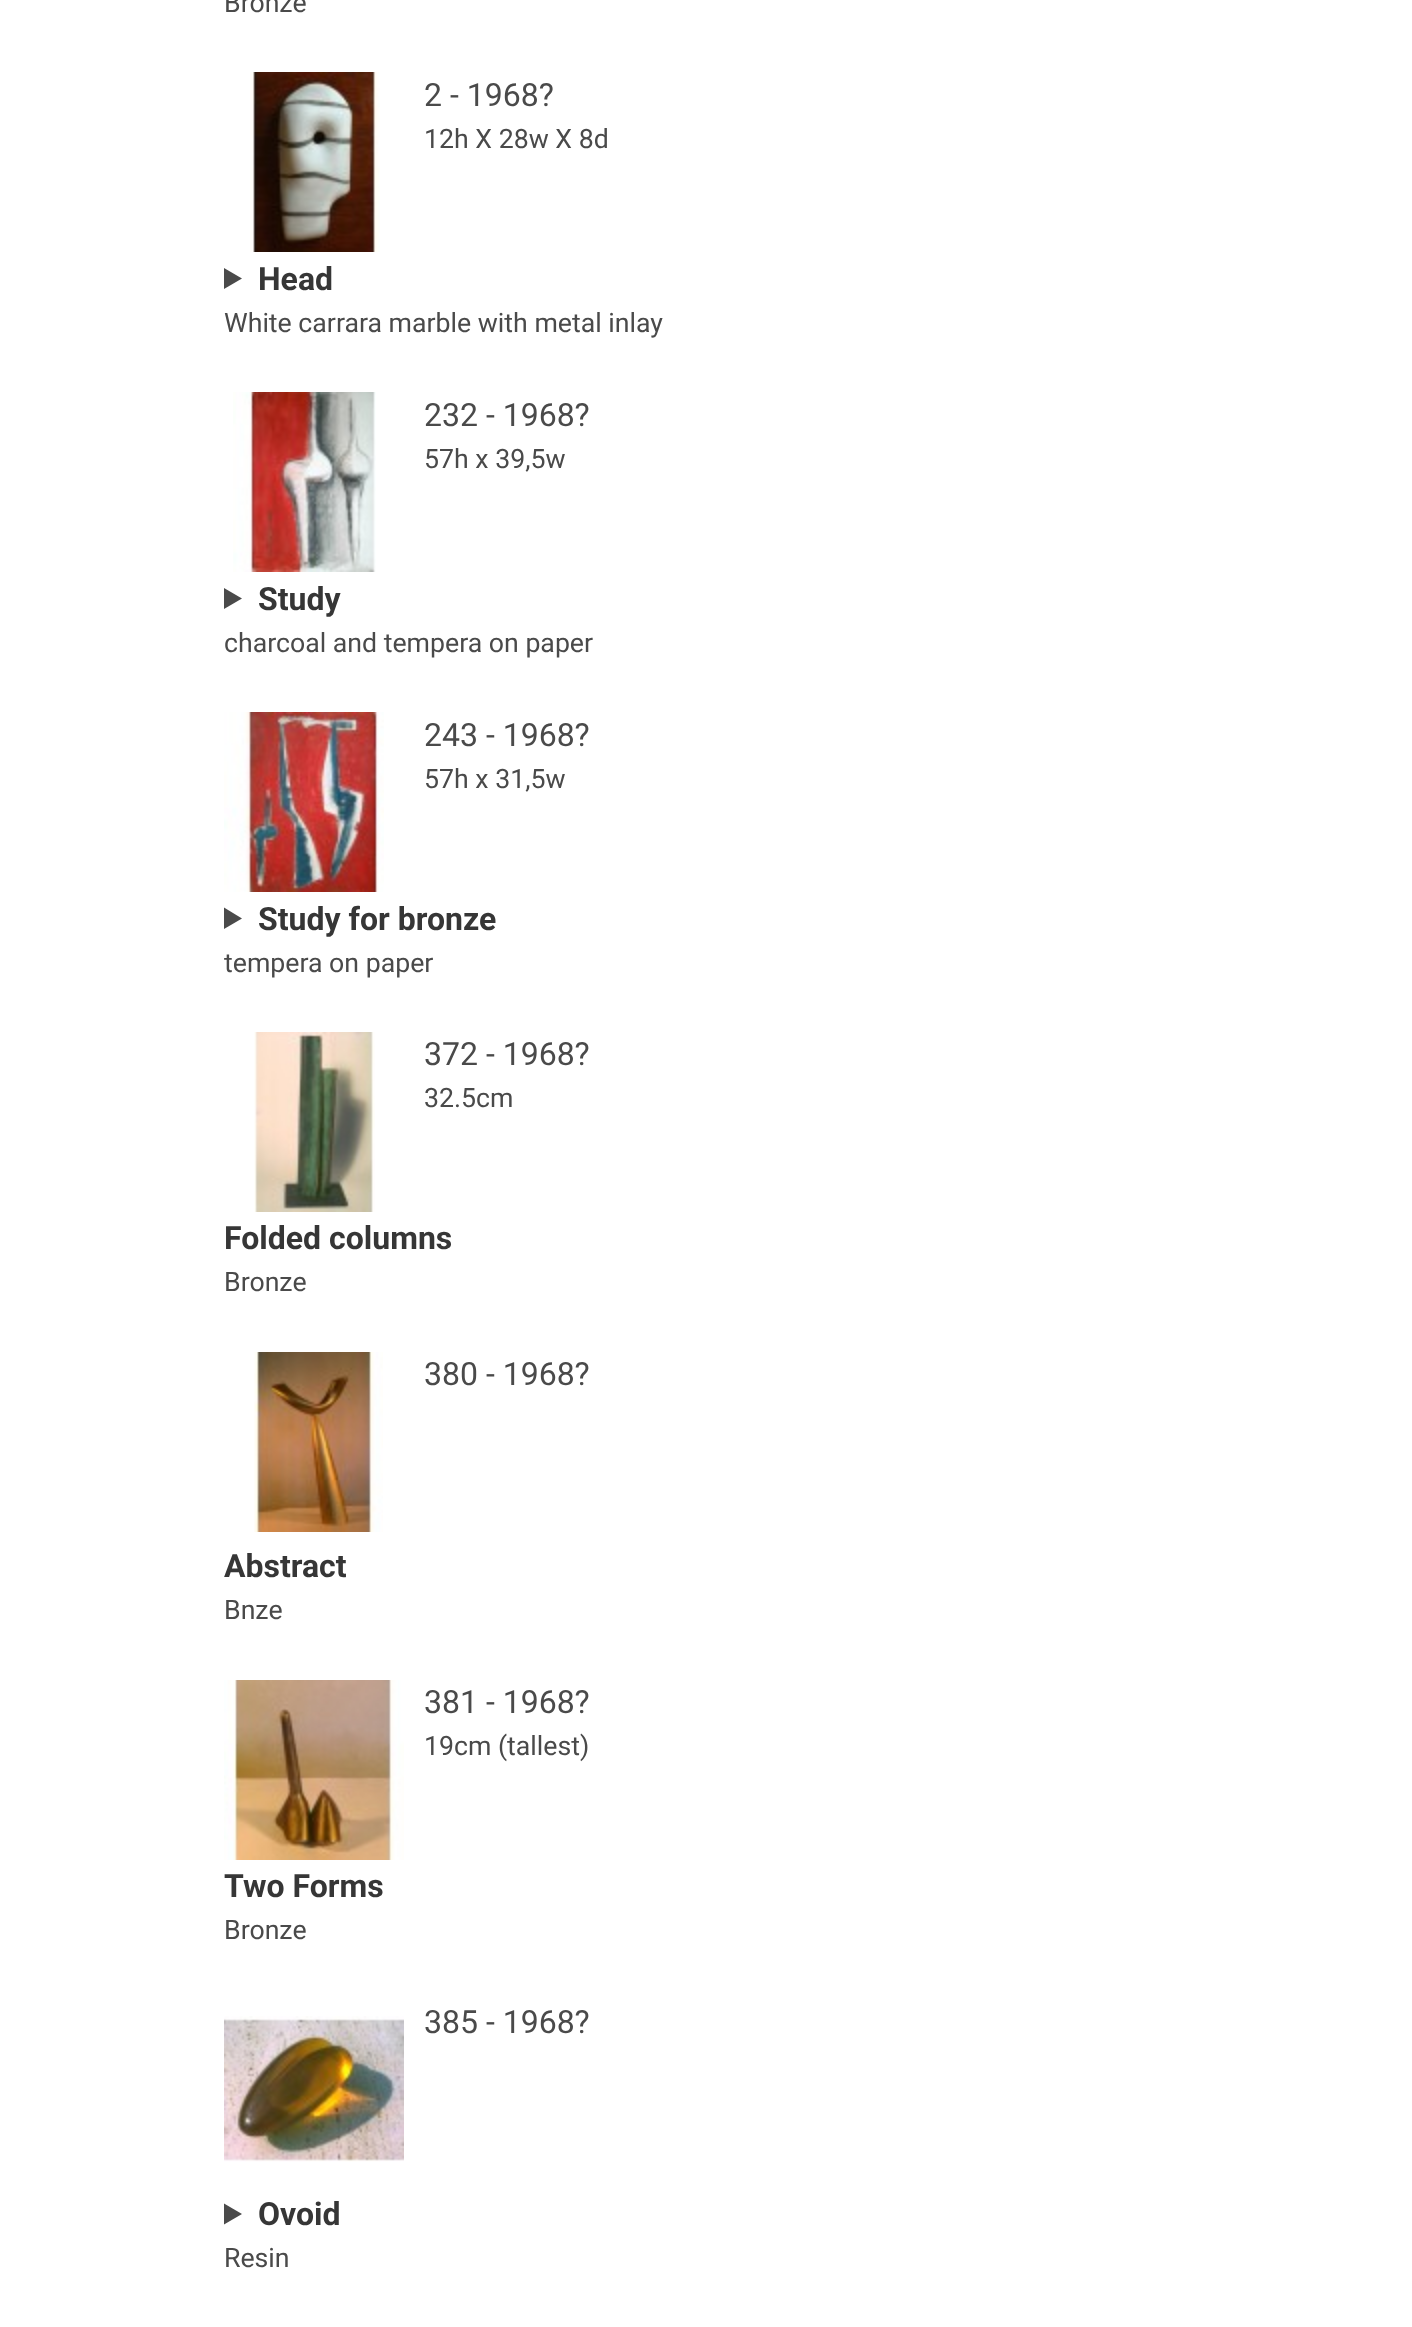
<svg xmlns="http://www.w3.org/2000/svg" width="1412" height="2327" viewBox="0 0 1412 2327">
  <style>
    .t1 { font: 26.7px Roboto; fill: #4a4a4a; }
    .t2 { font: 32px Roboto; fill: #4a4a4a; }
    .t3 { font: bold 32px Roboto; fill: #363636; }
  </style>
  <rect width="100%" height="100%" fill="#fff"/>
  <text x="224" y="12" class="t1">Bronze</text>
  <image x="250" y="72" width="130" height="180" href="images/1.png"/>
  <text x="424" y="106" class="t2">2 - 1968?</text>
  <text x="424" y="148" class="t1">12h X 28w X 8d</text>
  <path d="M224 268L242 278.5L224 289Z" fill="#4a4a4a"/>
  <text x="258" y="290" class="t3">Head</text>
  <text x="224" y="332" class="t1">White carrara marble with metal inlay</text>
  <image x="233" y="392" width="143" height="180" href="images/2.png"/>
  <text x="424" y="426" class="t2">232 - 1968?</text>
  <text x="424" y="468" class="t1">57h x 39,5w</text>
  <path d="M224 588L242 598.5L224 609Z" fill="#4a4a4a"/>
  <text x="258" y="610" class="t3">Study</text>
  <text x="224" y="652" class="t1">charcoal and tempera on paper</text>
  <image x="224" y="712" width="160" height="180" href="images/3.png"/>
  <text x="424" y="746" class="t2">243 - 1968?</text>
  <text x="424" y="788" class="t1">57h x 31,5w</text>
  <path d="M224 907.5L242 918.5L224 929Z" fill="#4a4a4a"/>
  <text x="258" y="930" class="t3">Study for bronze</text>
  <text x="224" y="972" class="t1">tempera on paper</text>
  <image x="254" y="1032" width="121" height="180" href="images/4.png"/>
  <text x="424" y="1065" class="t2">372 - 1968?</text>
  <text x="424" y="1107" class="t1">32.5cm</text>
  <text x="224" y="1249" class="t3">Folded columns</text>
  <text x="224" y="1291" class="t1">Bronze</text>
  <image x="254" y="1352" width="129" height="180" href="images/5.png"/>
  <text x="424" y="1385" class="t2">380 - 1968?</text>
  <text x="224" y="1577" class="t3">Abstract</text>
  <text x="224" y="1619" class="t1">Bnze</text>
  <image x="224" y="1680" width="180" height="180" href="images/6.png"/>
  <text x="424" y="1713" class="t2">381 - 1968?</text>
  <text x="424" y="1755" class="t1">19cm (tallest)</text>
  <text x="224" y="1897" class="t3">Two Forms</text>
  <text x="224" y="1939" class="t1">Bronze</text>
  <image x="224" y="2016" width="180" height="146" href="images/7.png"/>
  <text x="424" y="2033" class="t2">385 - 1968?</text>
  <path d="M224 2203.5L242 2214L224 2224.5Z" fill="#4a4a4a"/>
  <text x="258" y="2225" class="t3">Ovoid</text>
  <text x="224" y="2267" class="t1">Resin</text>
</svg>
